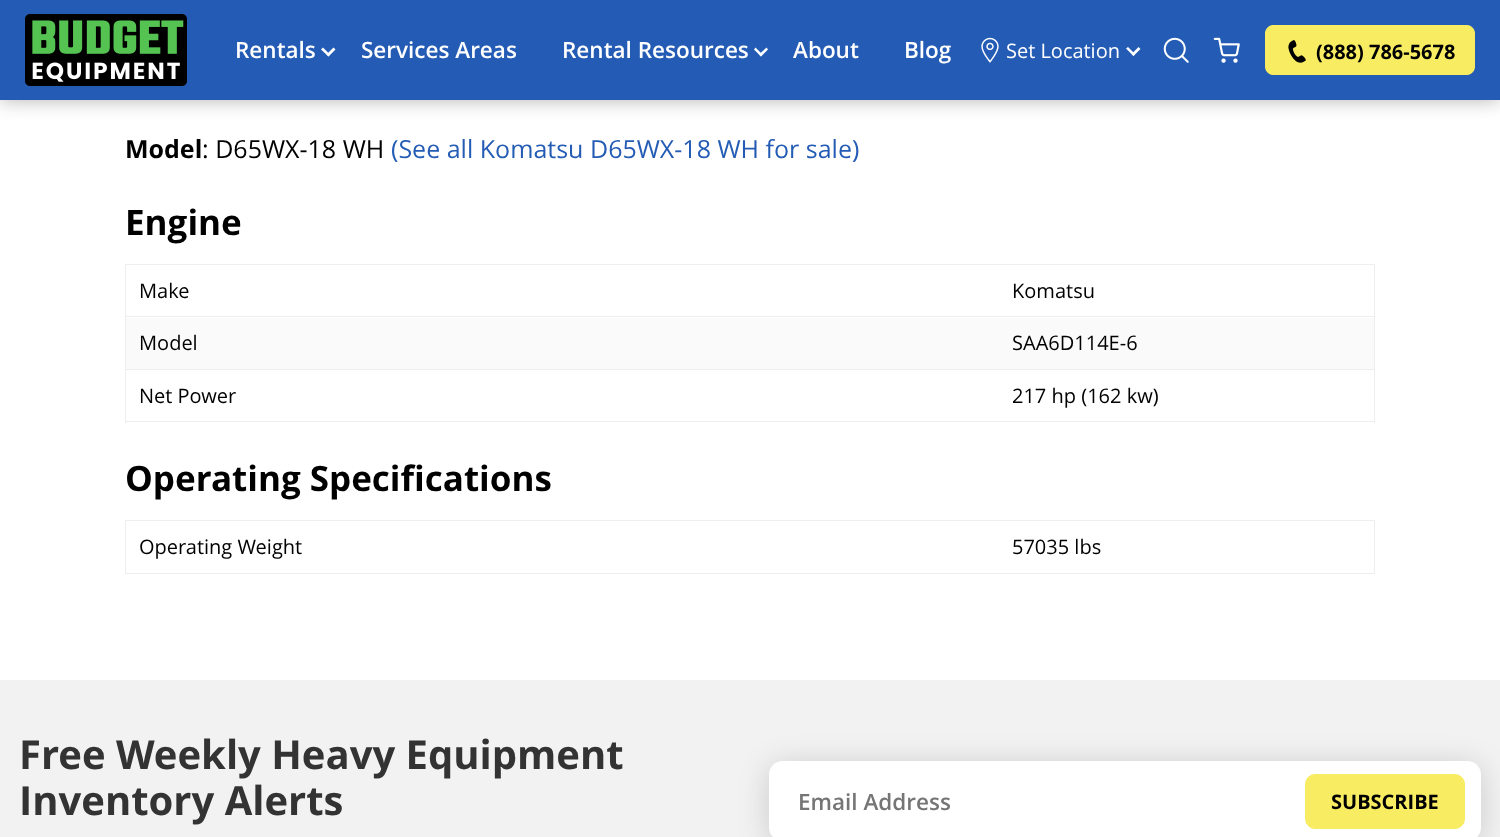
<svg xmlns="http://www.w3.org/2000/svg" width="1500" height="837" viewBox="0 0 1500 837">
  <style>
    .t1 { font: 600 22.5px Open Sans; fill: #fff; }
    .t2 { font: 20px Open Sans; fill: #fff; }
    .t3 { font: bold 20px Open Sans; fill: #000; }
    .t4 { font: bold 25px Open Sans; fill: #000; }
    .t5 { font: 25px Open Sans; fill: #000; }
    .t6 { font: 25px Open Sans; fill: #245cb5; }
    .t7 { font: bold 35px Open Sans; fill: #000; }
    .t8 { font: 20px Open Sans; fill: #000; }
    .t9 { font: bold 40px Open Sans; fill: #333; }
    .t10 { font: 600 22.5px Open Sans; fill: #757575; }
  </style>
  <rect width="100%" height="100%" fill="#fff"/>
  <rect x="0" y="0" width="1500" height="100" fill="#0000004d" filter="blur(9.5px)"/>
  <rect x="0" y="0" width="1500" height="100" fill="#245cb5"/>
  <image x="25" y="14" width="162" height="72" href="images/1.png"/>
  <text x="235" y="58" class="t1">Rentals</text>
  <path d="M326.5 54.5L333.5 47.5L335.5 49.5L328.5 56.5Z" fill="#fff"/>
  <path d="M321 49.5L323 47.5L330 54.5L328.5 56.5Z" fill="#fff"/>
  <text x="361" y="58" class="t1">Services Areas</text>
  <text x="562" y="58" class="t1">Rental Resources</text>
  <path d="M759 54.5L766.5 47.5L768 49.5L761 56.5Z" fill="#fff"/>
  <path d="M754 49.5L755.5 47.5L762.5 54.5L761 56.5Z" fill="#fff"/>
  <text x="793" y="58" class="t1">About</text>
  <text x="904" y="58" class="t1">Blog</text>
  <image x="981" y="37" width="18" height="26" href="images/2.png"/>
  <text x="1006" y="58" class="t2">Set Location</text>
  <path d="M1131.5 54L1138.5 47L1140.5 49L1133.5 56Z" fill="#fff"/>
  <path d="M1126 48.5L1128 47L1135 54L1133.5 56Z" fill="#fff"/>
  <image x="1163" y="37" width="26" height="26" href="images/3.png"/>
  <image x="1213" y="37" width="27" height="26" href="images/4.png"/>
  <rect x="1265.5" y="25.5" width="209" height="49" rx="7.5" fill="#f8ed62" stroke="#f8ed62"/>
  <image x="1288" y="40" width="18" height="23" href="images/5.png"/>
  <text x="1316" y="59" class="t3">(888) 786-5678</text>
  <text x="125" y="158" class="t4">Model</text>
  <text x="202" y="158" class="t5">: D65WX-18 WH</text>
  <text x="391" y="158" class="t6">(See all Komatsu D65WX-18 WH for sale)</text>
  <text x="125" y="235" class="t7">Engine</text>
  <rect x="125" y="264" width="1250" height="1" fill="#eee"/>
  <rect x="1374" y="264" width="1" height="159" fill="#eee"/>
  <rect x="125" y="421" width="1250" height="1" fill="#eee"/>
  <rect x="125" y="264" width="1" height="159" fill="#eee"/>
  <rect x="126" y="316" width="1248" height="1" fill="#eee"/>
  <text x="139" y="298" class="t8">Make</text>
  <text x="1012" y="298" class="t8">Komatsu</text>
  <rect x="126" y="318" width="1248" height="51" fill="#fafafa"/>
  <rect x="126" y="369" width="1248" height="1" fill="#eee"/>
  <text x="139" y="350" class="t8">Model</text>
  <text x="1012" y="350" class="t8">SAA6D114E-6</text>
  <text x="139" y="403" class="t8">Net Power</text>
  <text x="1012" y="403" class="t8">217 hp (162 kw)</text>
  <text x="125" y="491" class="t7">Operating Specifications</text>
  <rect x="125" y="520" width="1250" height="1" fill="#eee"/>
  <rect x="1374" y="520" width="1" height="54" fill="#eee"/>
  <rect x="125" y="573" width="1250" height="1" fill="#eee"/>
  <rect x="125" y="520" width="1" height="54" fill="#eee"/>
  <text x="139" y="554" class="t8">Operating Weight</text>
  <text x="1012" y="554" class="t8">57035 lbs</text>
  <rect x="0" y="680" width="1500" height="157" fill="#f2f2f2"/>
  <text x="19" y="769" class="t9">Free Weekly Heavy Equipment</text>
  <text x="19" y="815" class="t9">Inventory Alerts</text>
  <rect x="769" y="765" width="712" height="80" rx="13" fill="#00000029" filter="blur(15px)"/>
  <rect x="769.5" y="761.5" width="711" height="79" rx="12.5" fill="#fff" stroke="#fff"/>
  <text x="798" y="810" class="t10">Email Address</text>
  <rect x="1305.5" y="774.5" width="159" height="54" rx="9.5" fill="#f8ed62" stroke="#f8ed62"/>
  <text x="1331" y="809" class="t3">SUBSCRIBE</text>
</svg>
